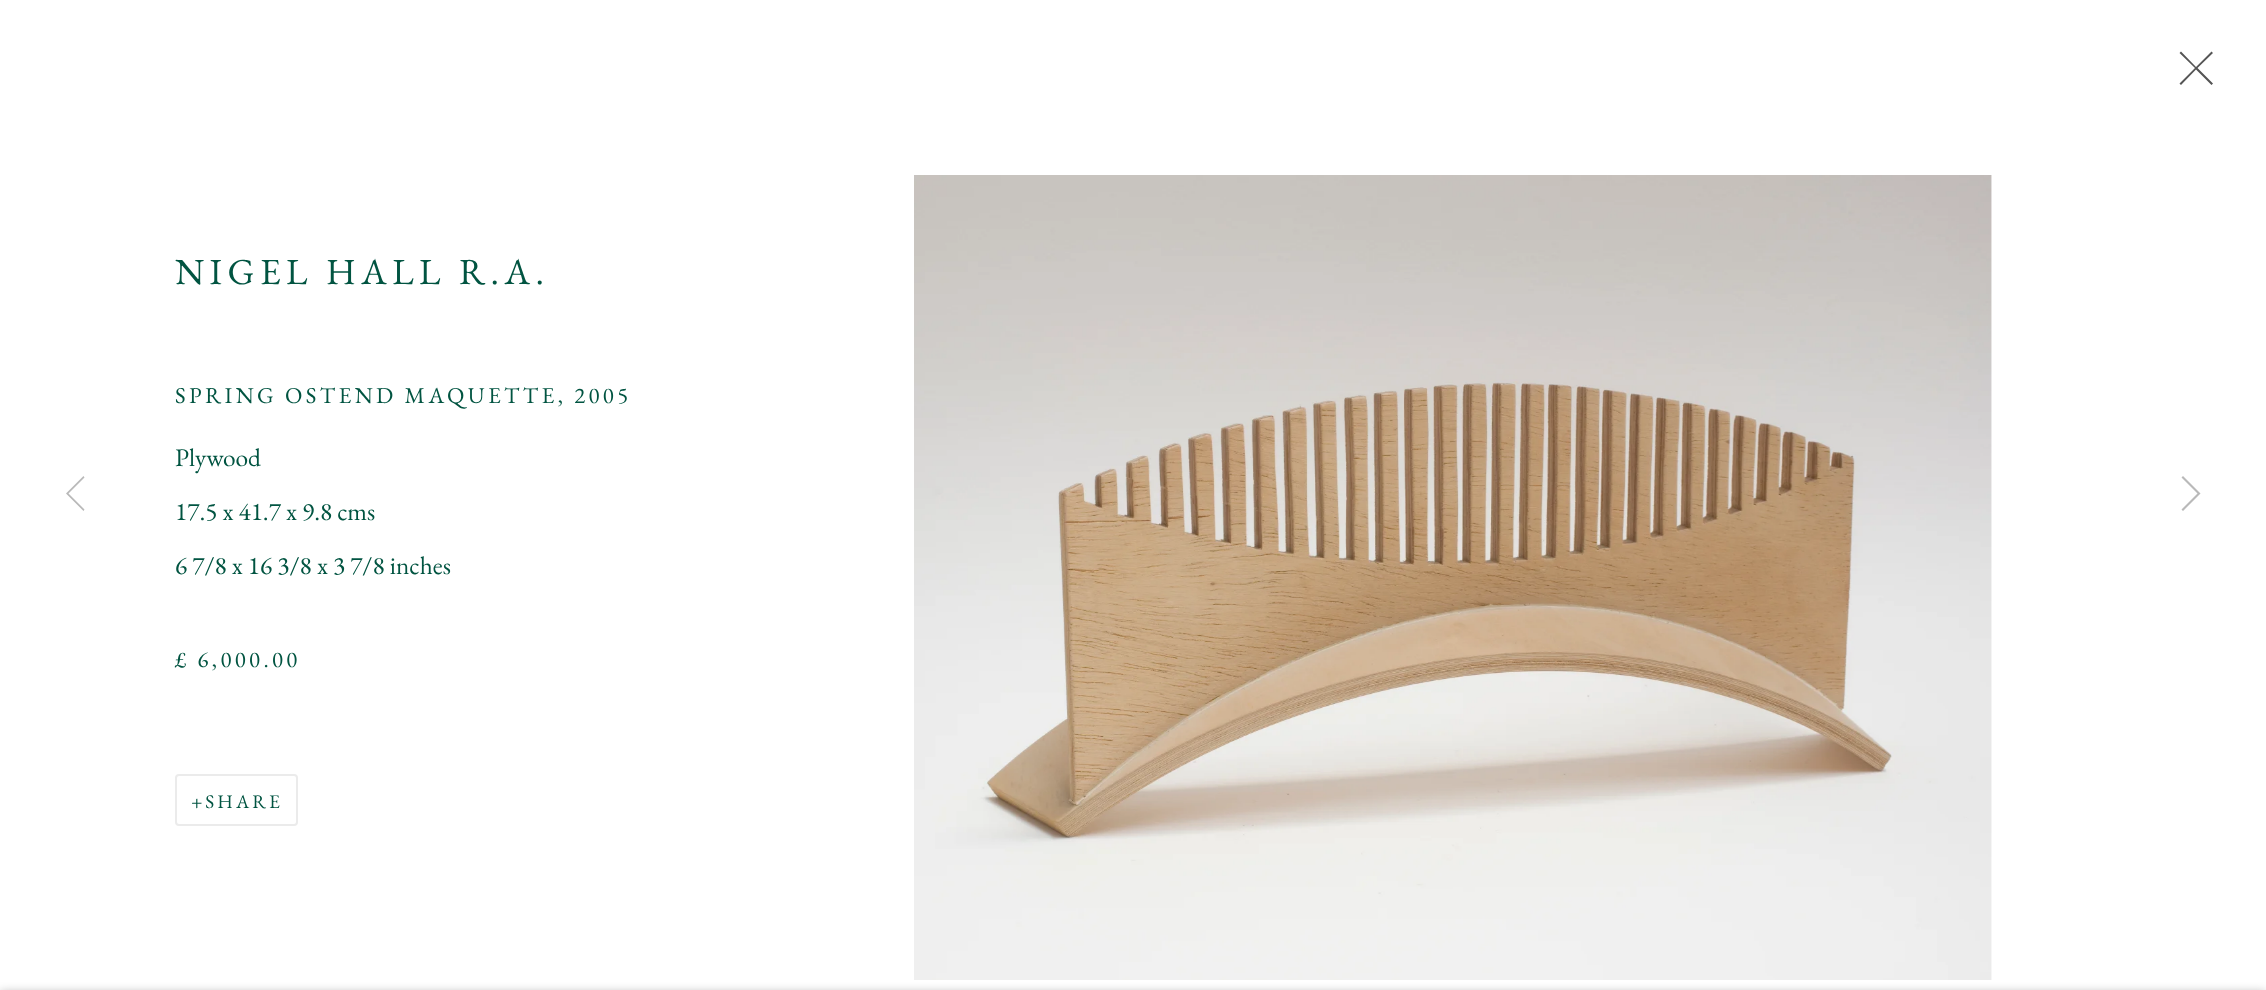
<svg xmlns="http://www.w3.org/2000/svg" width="2266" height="990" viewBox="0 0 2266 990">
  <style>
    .t1 { font: 36.75px EB Garamond; letter-spacing: 5.5px; fill: #015441; }
    .t2 { font: 22.75px EB Garamond; letter-spacing: 3.4px; fill: #015441; }
    .t3 { font: 25.4px EB Garamond; fill: #015441; }
    .t4 { font: 19.25px EB Garamond; letter-spacing: 3px; fill: #015441; }
  </style>
  <rect width="100%" height="100%" fill="#fff"/>
  <path d="M2213 53L2211.5 51.5L2196 67L2181 51.5L2179.5 53L2195 68L2179.5 83.5L2181 85L2196 69.5L2211.5 85L2213 83.5L2197.5 68Z" fill="#555"/>
  <text x="175" y="284" class="t1">NIGEL HALL R.A.</text>
  <text x="175" y="403" class="t2">SPRING OSTEND MAQUETTE, 2005</text>
  <text x="175" y="466" class="t3">Plywood</text>
  <text x="175" y="520" class="t3">17.5 x 41.7 x 9.8 cms</text>
  <text x="175" y="574" class="t3">6 7/8 x 16 3/8 x 3 7/8 inches</text>
  <text x="175" y="667" class="t2">£ 6,000.00</text>
  <rect x="176" y="775" width="121" height="50" rx="3" fill="none" stroke="#ebebeb" stroke-width="2"/>
  <text x="191" y="808" class="t4">+SHARE</text>
  <image x="914" y="175" width="1078" height="805" href="images/1.png"/>
  <path d="M67.5 495L83.5 511L84.5 509.5L68.5 493.5L84.5 477.5L83.5 476L66 493.5Z" fill="#b9b9b9"/>
  <path d="M2200.5 493.5L2183 476L2181.5 477.5L2197.5 493.5L2181.5 509.5L2183 511Z" fill="#b9b9b9"/>
  <rect x="0" y="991" width="2266" height="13" fill="#0000003b" filter="blur(4.5px)"/>
</svg>
